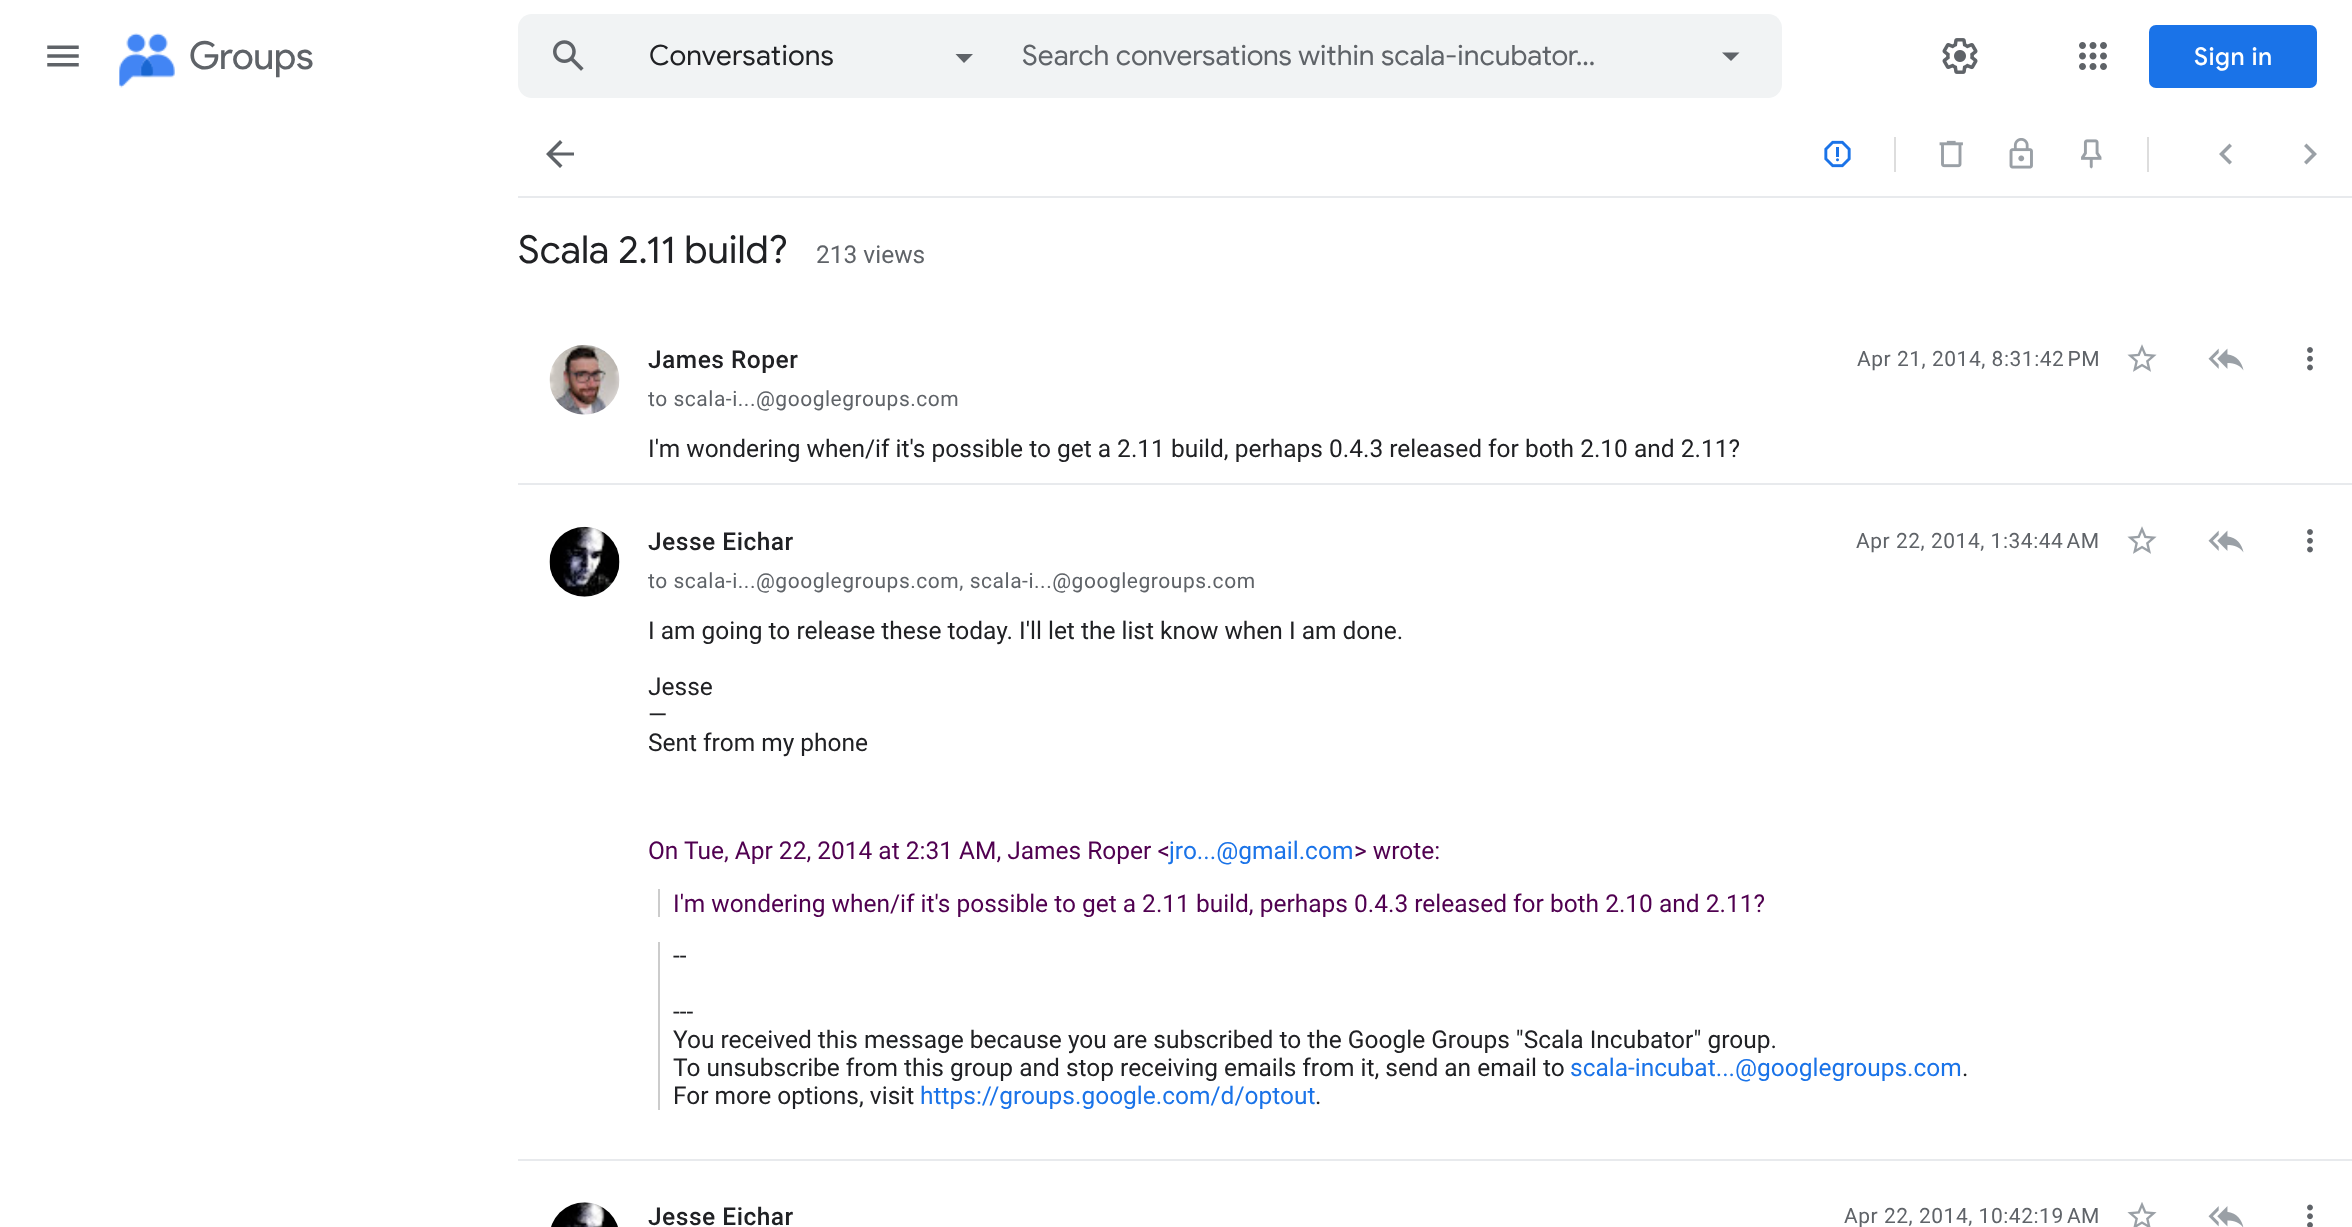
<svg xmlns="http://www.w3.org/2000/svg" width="2352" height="1227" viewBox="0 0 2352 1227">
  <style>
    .t1 { font: 38.5px Product Sans; fill: #5f6368; }
    .t2 { font: 28px Google Sans; letter-spacing: 0.3px; fill: #202124; }
    .t3 { font: 28px Google Sans; fill: #5f6368; }
    .t4 { font: 500 24.5px Google Sans; letter-spacing: 0.5px; fill: #fff; }
    .t5 { font: 38.5px Google Sans; fill: #202124; }
    .t6 { font: 24.5px Roboto; fill: #5f6368; }
    .t7 { font: 500 24.5px Roboto; letter-spacing: 0.5px; fill: #202124; }
    .t8 { font: 21px Roboto; letter-spacing: 0.53px; fill: #5f6368; }
    .t9 { font: 24.5px Roboto; fill: #202124; }
    .t10 { font: 24.5px Roboto; fill: #500050; }
    .t11 { font: 24.5px Roboto; fill: #1a73e8; }
  </style>
  <rect width="100%" height="100%" fill="#fff"/>
  <image x="47" y="45" width="32" height="22" href="images/1.png"/>
  <image x="119" y="33" width="56" height="55" href="images/2.png"/>
  <text x="189" y="69" class="t1">Groups</text>
  <rect x="518" y="14" width="1264" height="84" rx="14" fill="#f1f3f4"/>
  <image x="553" y="40" width="31" height="31" href="images/3.png"/>
  <text x="649" y="65" class="t2">Conversations</text>
  <path d="M955.5 54H973L964 63Z" fill="#5f6368"/>
  <text x="1022" y="65" class="t3">Search conversations within scala-incubator…</text>
  <path d="M1722 52.5L1731 61L1739.5 52.5Z" fill="#5f6368"/>
  <image x="1942" y="38" width="36" height="36" href="images/4.png"/>
  <image x="2079" y="42" width="28" height="28" href="images/5.png"/>
  <rect x="2149" y="25" width="168" height="63" rx="7" fill="#1a73e8"/>
  <text x="2194" y="65" class="t4">Sign in</text>
  <rect x="518" y="196" width="1834" height="2" fill="#e8eaed"/>
  <path d="M574 152.5V155.5H552.5L562.5 165.5L560 168L546 154L560 140L562.5 142.5L552.5 152.5Z" fill="#5f6368"/>
  <image x="1824" y="140" width="27" height="28" href="images/6.png"/>
  <rect x="1894" y="137" width="2" height="35" fill="#ddd"/>
  <image x="1939" y="140" width="24" height="28" href="images/7.png"/>
  <image x="2009" y="138" width="24" height="31" href="images/8.png"/>
  <image x="2081" y="139" width="21" height="30" href="images/9.png"/>
  <rect x="2147" y="137" width="2" height="35" fill="#ddd"/>
  <path d="M2232 146L2224 154L2232 162L2229.5 164.5L2219 154L2229.5 143.5Z" fill="#9aa0a6"/>
  <path d="M2306.5 143.5L2317 154L2306.5 164.5L2304 162L2312 154L2304 146Z" fill="#9aa0a6"/>
  <text x="518" y="263" class="t5">Scala 2.11 build?</text>
  <text x="816" y="263" class="t6">213 views</text>
  <rect x="518" y="483" width="1834" height="2" fill="#e8eaed"/>
  <image x="549" y="344" width="71" height="71" href="images/10.png"/>
  <text x="648" y="368" class="t7">James Roper</text>
  <text x="1857" y="366" class="t8">Apr 21, 2014, 8:31:42 PM</text>
  <image x="2127" y="344" width="30" height="28" href="images/11.png"/>
  <image x="2208" y="348" width="36" height="23" href="images/12.png"/>
  <image x="2307" y="347" width="6" height="24" href="images/13.png"/>
  <text x="648" y="406" class="t8">to scala-i...@googlegroups.com</text>
  <text x="648" y="457" class="t9">I'm wondering when/if it's possible to get a 2.11 build, perhaps 0.4.3 released for both 2.10 and 2.11?</text>
  <rect x="518" y="1159" width="1834" height="2" fill="#e8eaed"/>
  <image x="549" y="526" width="71" height="71" href="images/14.png"/>
  <text x="648" y="550" class="t7">Jesse Eichar</text>
  <text x="1856" y="548" class="t8">Apr 22, 2014, 1:34:44 AM</text>
  <image x="2127" y="526" width="30" height="28" href="images/11.png"/>
  <image x="2208" y="530" width="36" height="23" href="images/12.png"/>
  <image x="2307" y="529" width="6" height="24" href="images/13.png"/>
  <text x="648" y="588" class="t8">to scala-i...@googlegroups.com, scala-i...@googlegroups.com</text>
  <text x="648" y="639" class="t9">I am going to release these today. I'll let the list know when I am done.</text>
  <text x="648" y="695" class="t9">Jesse</text>
  <text x="648" y="723" class="t9">—</text>
  <text x="648" y="751" class="t9">Sent from my phone</text>
  <text x="648" y="859" class="t10">On Tue, Apr 22, 2014 at 2:31 AM, James Roper &lt;</text>
  <text x="1169" y="859" class="t11">jro...@gmail.com</text>
  <text x="1354" y="859" class="t10">&gt; wrote:</text>
  <rect x="658" y="889" width="2" height="28" fill="#ccc"/>
  <text x="673" y="912" class="t10">I'm wondering when/if it's possible to get a 2.11 build, perhaps 0.4.3 released for both 2.10 and 2.11?</text>
  <rect x="658" y="942" width="2" height="168" fill="#ccc"/>
  <text x="673" y="964" class="t9">--</text>
  <text x="673" y="1020" class="t9">---</text>
  <text x="673" y="1048" class="t9">You received this message because you are subscribed to the Google Groups "Scala Incubator" group.</text>
  <text x="673" y="1076" class="t9">To unsubscribe from this group and stop receiving emails from it, send an email to</text>
  <text x="1570" y="1076" class="t11">scala-incubat...@googlegroups.com</text>
  <text x="1962" y="1076" class="t9">.</text>
  <text x="673" y="1104" class="t9">For more options, visit</text>
  <text x="920" y="1104" class="t11">https://groups.google.com/d/optout</text>
  <text x="1315" y="1104" class="t9">.</text>
  <image x="551" y="1202" width="67" height="25" href="images/15.png"/>
  <text x="648" y="1225" class="t7">Jesse Eichar</text>
  <text x="1844" y="1223" class="t8">Apr 22, 2014, 10:42:19 AM</text>
  <image x="2127" y="1202" width="30" height="25" href="images/16.png"/>
  <image x="2208" y="1206" width="36" height="21" href="images/17.png"/>
  <image x="2307" y="1204" width="6" height="23" href="images/18.png"/>
</svg>
